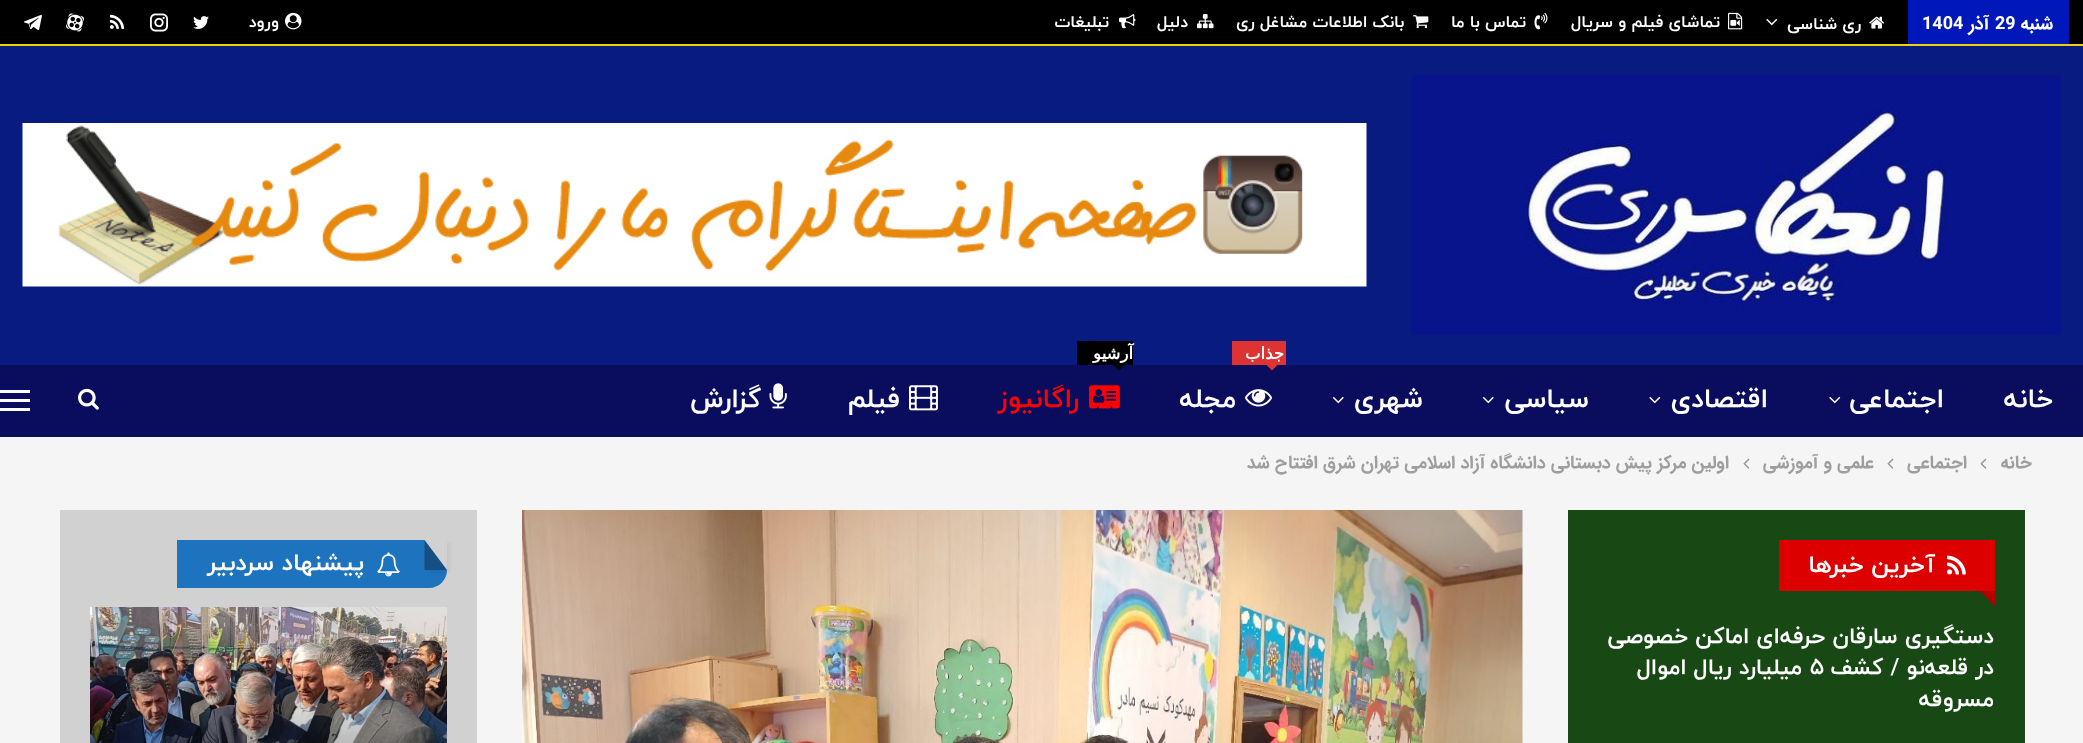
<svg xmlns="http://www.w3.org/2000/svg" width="2083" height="743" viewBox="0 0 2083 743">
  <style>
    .t1 { font: bold 18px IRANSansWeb; direction: rtl; fill: #fff; }
    .t2 { font: bold 18px IRANSansWeb; fill: #fff; }
    .t3 { font: bold 16.5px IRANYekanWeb; direction: rtl; fill: #fff; }
    .t4 { font: bold 27px IRANYekanWeb; direction: rtl; fill: #fff; }
    .t5 { font: bold 16.5px DejaVu Sans; letter-spacing: 1.5px; direction: rtl; fill: #fff; }
    .t6 { font: bold 27px IRANYekanWeb; direction: rtl; fill: #f00; }
    .t7 { font: bold 18px IRANSansWeb; direction: rtl; fill: #9e9e9e; }
    .t8 { font: bold 24px IRANYekanWeb; direction: rtl; fill: #fff; }
    .t9 { font: bold 22.5px IRANYekanWeb; direction: rtl; fill: #fff; }
    .t10 { font: bold 22.5px IRANYekanWeb; fill: #fff; }
  </style>
  <defs>
    <clipPath id="clip1"><path d="M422 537H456V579H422ZM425 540H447V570H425Z" clip-rule="evenodd"/></clipPath>
  </defs>
  <rect width="100%" height="100%" fill="#f5f5f5"/>
  <rect x="0" y="46" width="2083" height="319" fill="#071b80"/>
  <rect x="0" y="0" width="2083" height="44" fill="#000"/>
  <rect x="0" y="44" width="2083" height="2" fill="#f2d100"/>
  <rect x="1908" y="0" width="161" height="44" fill="#0018ba"/>
  <text x="2053" y="29" class="t1">شنبه</text>
  <text x="1995" y="29" class="t2">29</text>
  <text x="1989" y="29" class="t1">آذر</text>
  <text x="1922" y="29" class="t2">1404</text>
  <image x="1869" y="16" width="15" height="13" href="images/1.png"/>
  <text x="1861" y="29" class="t3">ری شناسی</text>
  <image x="1766" y="18" width="12" height="8" href="images/2.png"/>
  <image x="1728" y="12" width="15" height="18" href="images/3.png"/>
  <text x="1720" y="27" class="t3">تماشای فیلم و سریال</text>
  <image x="1534" y="13" width="14" height="17" href="images/4.png"/>
  <text x="1526" y="27" class="t3">تماس با ما</text>
  <image x="1413" y="15" width="16" height="14" href="images/5.png"/>
  <text x="1404" y="27" class="t3">بانک اطلاعات مشاغل ری</text>
  <image x="1197" y="14" width="17" height="15" href="images/6.png"/>
  <text x="1188" y="27" class="t3">دلیل</text>
  <image x="1119" y="14" width="17" height="15" href="images/7.png"/>
  <text x="1109" y="27" class="t3">تبلیغات</text>
  <image x="285" y="12" width="17" height="18" href="images/8.png"/>
  <text x="279" y="27" class="t3">ورود</text>
  <image x="193" y="16" width="16" height="13" href="images/9.png"/>
  <image x="150" y="13" width="18" height="19" href="images/10.png"/>
  <image x="109" y="14" width="15" height="15" href="images/11.png"/>
  <image x="66" y="13" width="18" height="19" href="images/12.png"/>
  <image x="24" y="14" width="18" height="16" href="images/13.png"/>
  <image x="1411" y="75" width="650" height="260" href="images/14.png"/>
  <image x="22" y="123" width="1345" height="164" href="images/15.png"/>
  <rect x="0" y="365" width="2083" height="72" fill="#0a0d5e"/>
  <text x="2053" y="407" class="t4">خانه</text>
  <text x="1944" y="407" class="t4">اجتماعی</text>
  <image x="1829" y="396" width="12" height="8" href="images/16.png"/>
  <text x="1768" y="407" class="t4">اقتصادی</text>
  <image x="1649" y="396" width="12" height="8" href="images/16.png"/>
  <text x="1589" y="407" class="t4">سیاسی</text>
  <image x="1482" y="396" width="12" height="8" href="images/17.png"/>
  <text x="1423" y="407" class="t4">شهری</text>
  <image x="1332" y="396" width="12" height="8" href="images/17.png"/>
  <rect x="1232" y="341" width="54" height="24" fill="#d33"/>
  <text x="1284" y="359" class="t5">جذاب</text>
  <path d="M1266 364.5H1278L1272 370.5Z" fill="#d33"/>
  <image x="1245" y="389" width="27" height="18" href="images/18.png"/>
  <text x="1236" y="407" class="t4">مجله</text>
  <rect x="1077" y="341" width="56" height="24" fill="#000"/>
  <text x="1133" y="359" class="t5">آرشیو</text>
  <path d="M1113 364.5H1125L1119 370.5Z" fill="#000"/>
  <image x="1089" y="385" width="31" height="24" href="images/19.png"/>
  <text x="1079" y="407" class="t6">راگانیوز</text>
  <image x="909" y="385" width="29" height="26" href="images/20.png"/>
  <text x="900" y="407" class="t4">فیلم</text>
  <image x="769" y="383" width="18" height="26" href="images/21.png"/>
  <text x="761" y="407" class="t4">گزارش</text>
  <image x="78" y="388" width="21" height="22" href="images/22.png"/>
  <rect x="0" y="399" width="30" height="3" fill="#fff"/>
  <rect x="0" y="390" width="30" height="3" fill="#fff"/>
  <rect x="0" y="408" width="30" height="3" fill="#fff"/>
  <text x="2032" y="468" class="t7">خانه</text>
  <image x="1980" y="458" width="7" height="11" href="images/23.png"/>
  <text x="1967" y="468" class="t7">اجتماعی</text>
  <image x="1887" y="458" width="7" height="11" href="images/23.png"/>
  <text x="1874" y="468" class="t7">علمی و آموزشی</text>
  <image x="1743" y="458" width="7" height="11" href="images/23.png"/>
  <text x="1729" y="468" class="t7">اولین مرکز پیش دبستانی دانشگاه آزاد اسلامی تهران شرق افتتاح شد</text>
  <rect x="1568" y="510" width="457" height="233" fill="#184915"/>
  <rect x="1779" y="540" width="216" height="51" fill="#d00"/>
  <image x="1947" y="555" width="19" height="20" href="images/24.png"/>
  <text x="1935" y="572" class="t8">آخرین خبرها</text>
  <path d="M1980 591H1995V606Z" fill="#d00"/>
  <path d="M1980 591H1995V606Z" fill="#0000002e"/>
  <text x="1994" y="643" class="t9">دستگیری سارقان حرفه‌ای اماکن خصوصی</text>
  <text x="1994" y="674" class="t9">در قلعه‌نو / کشف</text>
  <text x="1810" y="674" class="t10">۵</text>
  <text x="1802" y="674" class="t9">میلیارد ریال اموال</text>
  <text x="1994" y="706" class="t9">مسروقه</text>
  <image x="522" y="510" width="1001" height="233" href="images/25.png"/>
  <rect x="60" y="510" width="417" height="233" fill="#d1d1d1"/>
  <path d="M177 540H447V570C447 580 439 588 429 588H177Z" fill="#1e73be"/>
  <path d="M424.5 540H447V570Z" fill="#d1d1d1"/>
  <g clip-path="url(#clip1)">
    <rect x="428" y="543" width="22" height="30" fill="#0000000d" filter="blur(1.5px)"/>
  </g>
  <path d="M447 570H424.5V540Z" fill="#0000004d"/>
  <image x="377" y="552" width="23" height="25" href="images/26.png"/>
  <text x="364" y="570" class="t8">پیشنهاد سردبیر</text>
  <image x="90" y="607" width="357" height="136" href="images/27.png"/>
</svg>
